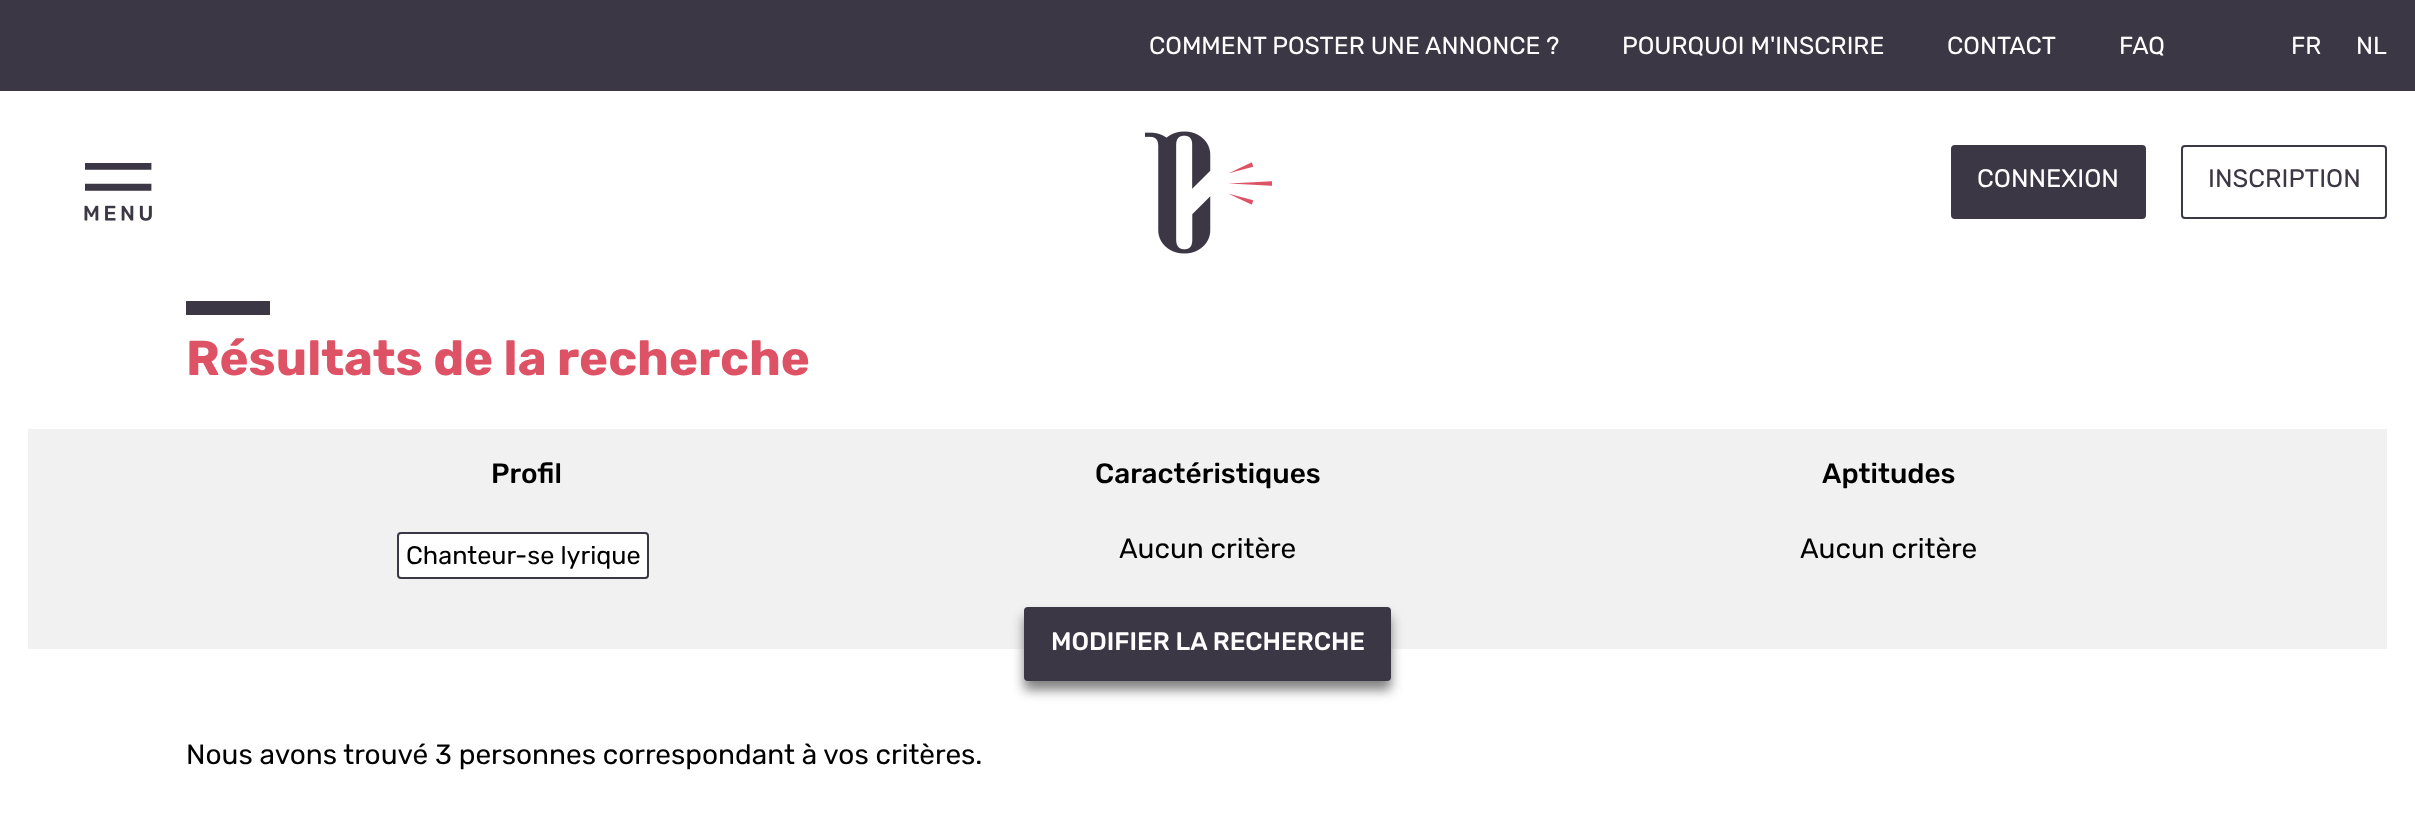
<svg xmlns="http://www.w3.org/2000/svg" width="2415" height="833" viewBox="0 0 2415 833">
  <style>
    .t1 { font: 24.5px Rubik; fill: #fff; }
    .t2 { font: 25.25px Rubik; fill: #fff; }
    .t3 { font: 25.25px Rubik; fill: #3c3744; }
    .t4 { font: bold 49px Rubik; fill: #de5266; }
    .t5 { font: 500 28px Rubik; fill: #000; }
    .t6 { font: 25.25px Rubik; fill: #000; }
    .t7 { font: 28px Rubik; fill: #000; }
    .t8 { font: 500 25.25px Rubik; fill: #fff; }
  </style>
  <rect width="100%" height="100%" fill="#fff"/>
  <rect x="0" y="0" width="2415" height="91" fill="#3c3744"/>
  <text x="1149" y="54" class="t1">COMMENT POSTER UNE ANNONCE ?</text>
  <text x="1622" y="54" class="t1">POURQUOI M'INSCRIRE</text>
  <text x="1947" y="54" class="t1">CONTACT</text>
  <text x="2119" y="54" class="t1">FAQ</text>
  <text x="2291" y="54" class="t1">FR</text>
  <text x="2356" y="54" class="t1">NL</text>
  <image x="84" y="163" width="68" height="58" href="images/1.png"/>
  <image x="1145" y="131" width="127" height="123" href="images/2.png"/>
  <rect x="1952" y="146" width="193" height="72" rx="3" fill="#3c3744" stroke="#3c3744" stroke-width="2"/>
  <text x="1977" y="187" class="t2">CONNEXION</text>
  <rect x="2182" y="146" width="204" height="72" rx="3" fill="none" stroke="#3c3744" stroke-width="2"/>
  <text x="2208" y="187" class="t3">INSCRIPTION</text>
  <rect x="186" y="301" width="84" height="14" fill="#3c3744"/>
  <text x="186" y="375" class="t4">Résultats de la recherche</text>
  <rect x="28" y="429" width="2359" height="220" fill="#f1f1f1"/>
  <text x="491" y="483" class="t5">Profil</text>
  <rect x="398" y="533" width="250" height="45" rx="3" fill="#fff" stroke="#3c3744" stroke-width="2"/>
  <text x="406" y="564" class="t6">Chanteur-se lyrique</text>
  <text x="1095" y="483" class="t5">Caractéristiques</text>
  <text x="1119" y="558" class="t7">Aucun critère</text>
  <text x="1822" y="483" class="t5">Aptitudes</text>
  <text x="1800" y="558" class="t7">Aucun critère</text>
  <rect x="1024" y="616" width="367" height="74" rx="4" fill="#808080" filter="blur(6px)"/>
  <rect x="1024" y="607" width="367" height="74" rx="4" fill="#3c3744"/>
  <text x="1051" y="650" class="t8">MODIFIER LA RECHERCHE</text>
  <text x="186" y="764" class="t7">Nous avons trouvé 3 personnes correspondant à vos critères.</text>
</svg>
